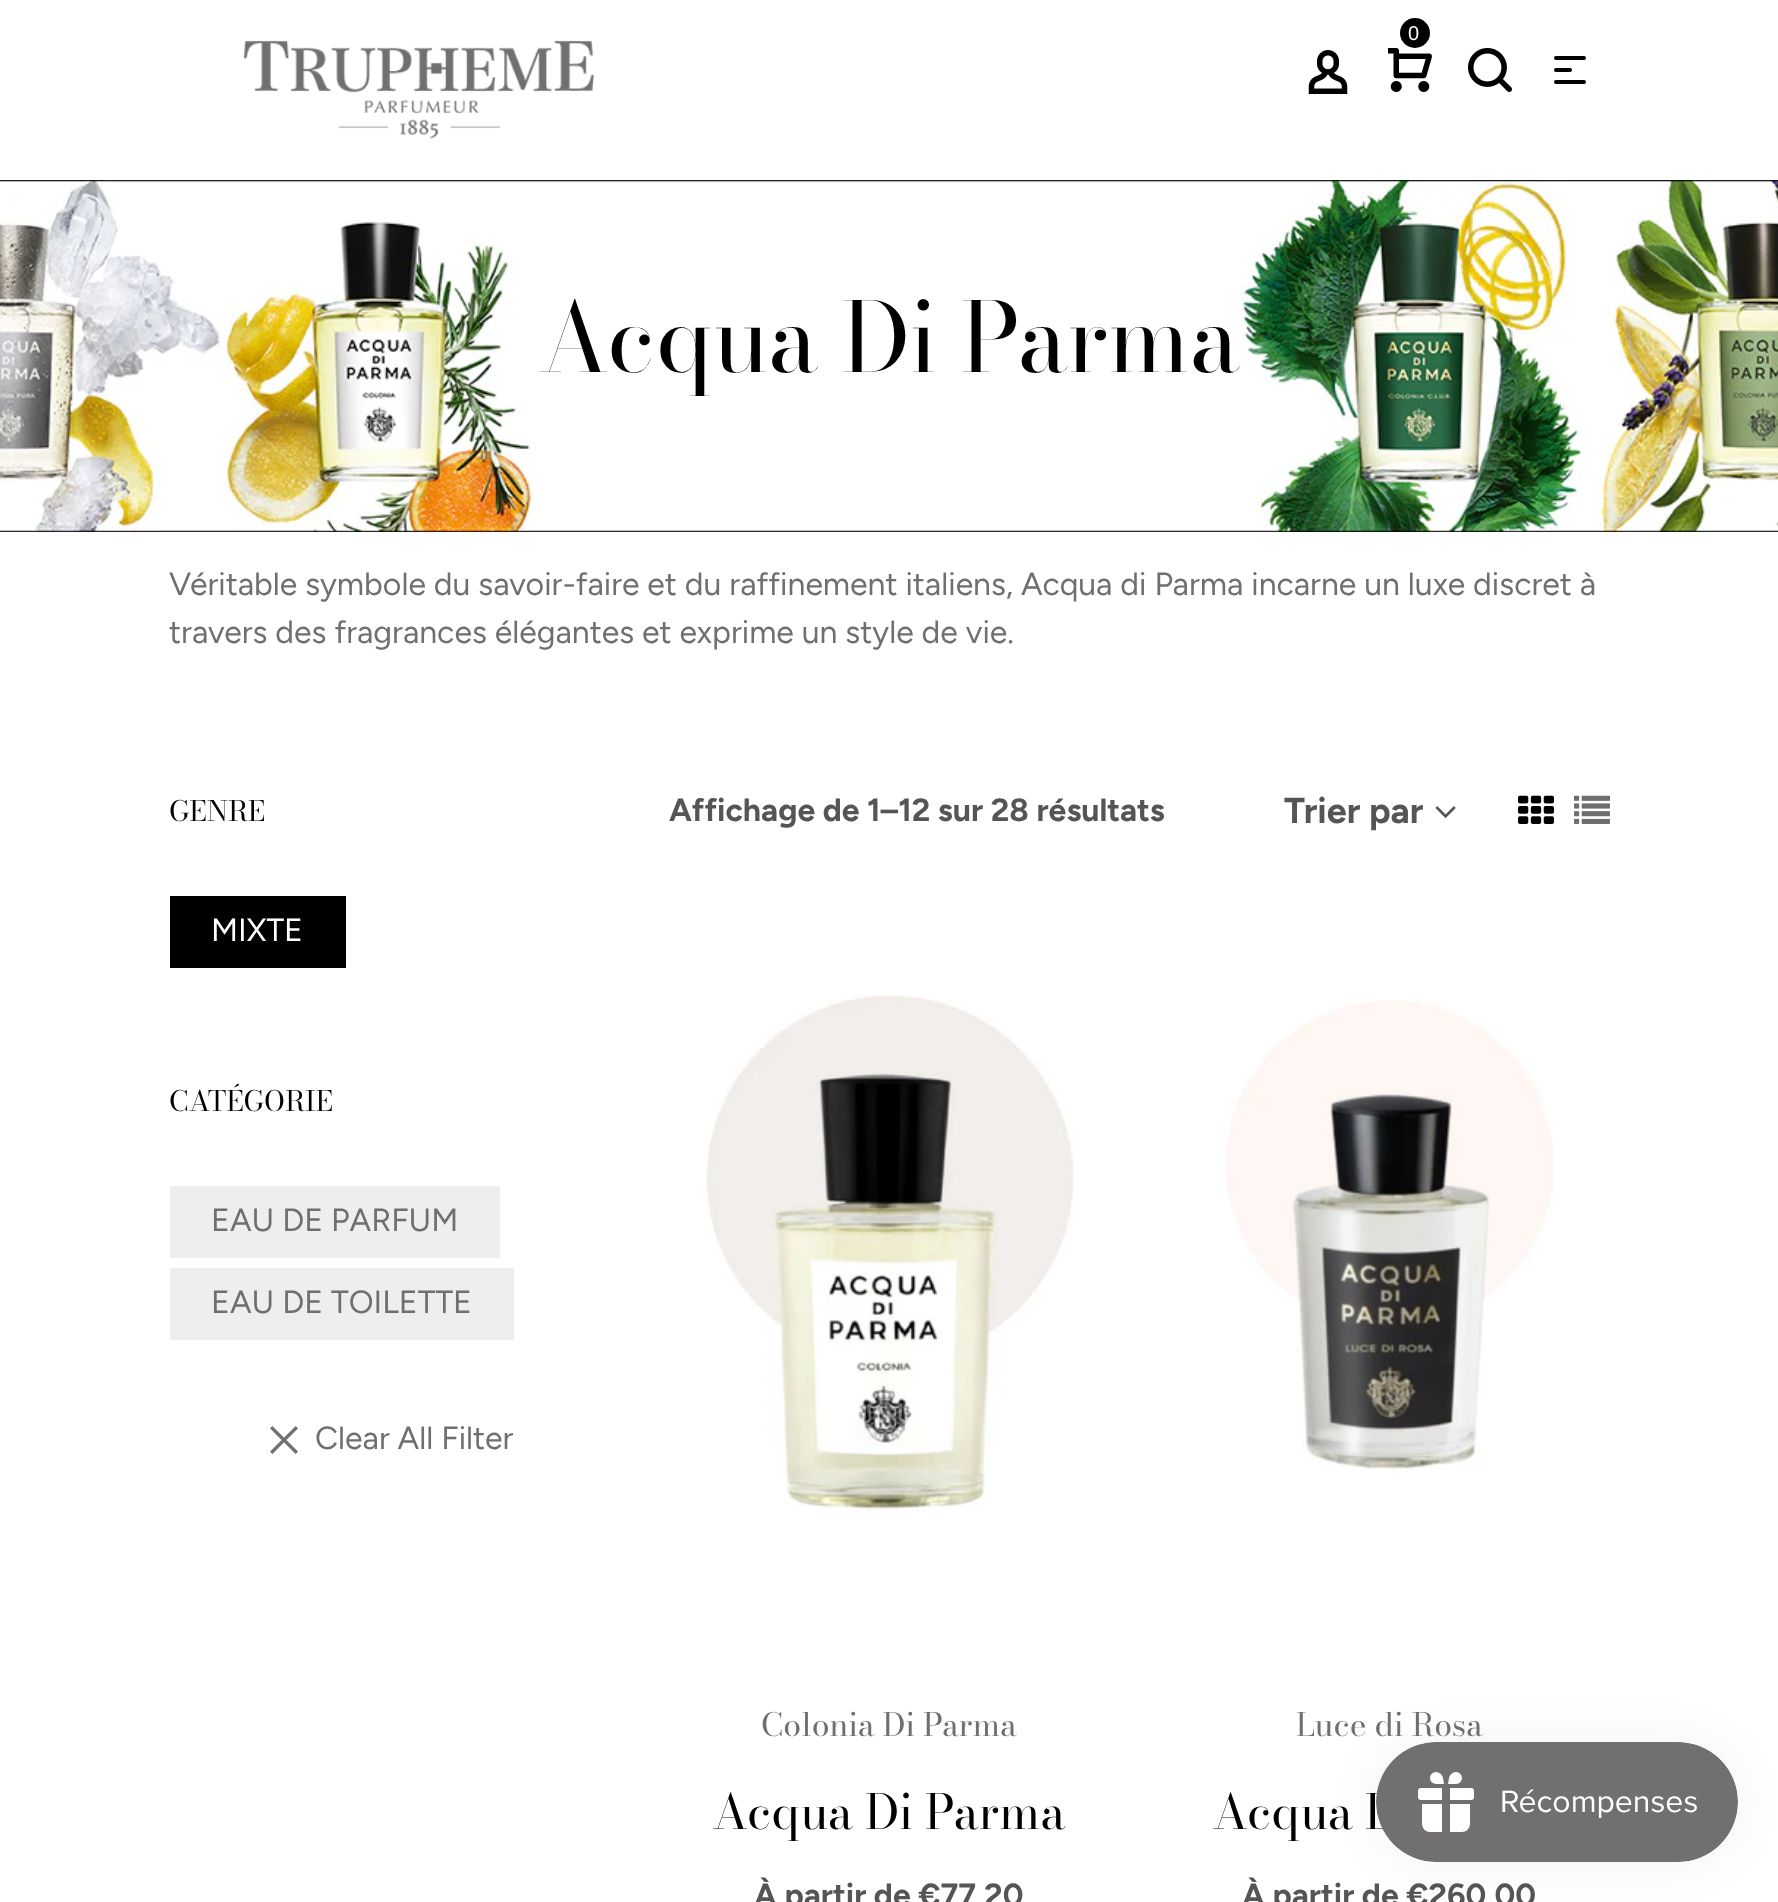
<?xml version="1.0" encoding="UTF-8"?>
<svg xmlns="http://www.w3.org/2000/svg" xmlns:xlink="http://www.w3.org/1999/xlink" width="1778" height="1902">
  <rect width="100%" height="100%" fill="#ffffff" />
  <circle cx="1415" cy="33" r="15" fill="#000000" />
  <image x="1388" y="48" width="44" height="44" xlink:href="image1.png" />
  <image x="1308" y="50" width="40" height="44" xlink:href="image2.png" />
  <image x="1468" y="48" width="44" height="44" xlink:href="image3.png" />
  <image x="1554" y="56" width="32" height="28" xlink:href="image4.png" />
  <image x="244" y="40" width="350" height="99" xlink:href="image5.png" />
  <image x="0" y="180" width="1778" height="352" xlink:href="image6.png" />
  <rect x="170" y="896" width="176" height="72" fill="#000000" />
  <rect x="170" y="1186" width="330" height="72" fill="#eeeeee" />
  <rect x="170" y="1268" width="344" height="72" fill="#eeeeee" />
  <image x="270" y="1426" width="28" height="28" xlink:href="image7.png" />
  <image x="1435" y="806" width="21" height="12" xlink:href="image8.png" />
  <image x="1518" y="795" width="36" height="29" xlink:href="image9.png" />
  <image x="1574" y="795" width="36" height="29" xlink:href="image10.png" />
  <image x="706" y="994" width="368" height="518" xlink:href="image11.png" />
  <image x="1225" y="1000" width="329" height="470" xlink:href="image12.png" />
  <rect x="1376" y="1742" width="362" height="120" rx="60" fill="#000000" fill-opacity="0.05" filter="blur(25px)" />
  <text x="1408" y="40" style="font-family: Liberation Sans; font-size: 20px; fill: #ffffff">0</text>
  <text x="538" y="372" style="font-family: Bodoni Moda; font-size: 96px; fill: #000000">Acqua Di Parma</text>
  <text x="169" y="595" style="font-family: Figtree; font-size: 32px; fill: #706f6f">Véritable symbole du savoir-faire et du raffinement italiens, Acqua di Parma incarne un luxe discret à</text>
  <text x="169" y="643" style="font-family: Figtree; font-size: 32px; fill: #706f6f">travers des fragrances élégantes et exprime un style de vie.</text>
  <text x="169" y="821" style="font-family: 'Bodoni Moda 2'; font-size: 28px; fill: #000000">GENRE</text>
  <text x="211" y="941" style="font-family: Figtree; font-size: 32px; fill: #ffffff">MIXTE</text>
  <text x="169" y="1111" style="font-family: 'Bodoni Moda 2'; font-size: 28px; fill: #000000">CATÉGORIE</text>
  <text x="211" y="1231" style="font-family: Figtree; font-size: 32px; fill: #706f6f">EAU DE PARFUM</text>
  <text x="211" y="1313" style="font-family: Figtree; font-size: 32px; fill: #706f6f">EAU DE TOILETTE</text>
  <text x="315" y="1449" style="font-family: Figtree; font-size: 32px; fill: #706f6f">Clear All Filter</text>
  <text x="669" y="821" style="font-family: Figtree; font-size: 32px; font-weight: bold; fill: #555555">Affichage de 1–12 sur 28 résultats</text>
  <text x="1284" y="823" style="font-family: Figtree; font-size: 36px; font-weight: bold; fill: #555555">Trier par</text>
  <text x="761" y="1736" style="font-family: 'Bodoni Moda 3'; font-size: 32px; fill: #706f6f">Colonia Di Parma</text>
  <text x="712" y="1829" style="font-family: 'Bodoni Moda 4'; font-size: 48px; fill: #000000">Acqua Di Parma</text>
  <text x="754" y="1906" style="font-family: Figtree; font-size: 32px; font-weight: bold; fill: #555555">À partir de €77,20</text>
  <text x="1296" y="1736" style="font-family: 'Bodoni Moda 3'; font-size: 32px; fill: #706f6f">Luce di Rosa</text>
  <text x="1212" y="1829" style="font-family: 'Bodoni Moda 4'; font-size: 48px; fill: #000000">Acqua D</text>
  <text x="1242" y="1906" style="font-family: Figtree; font-size: 32px; font-weight: bold; fill: #555555">À partir de €260,00</text>
  <image x="1376" y="1742" width="362" height="120" xlink:href="image13.png" />
</svg>
